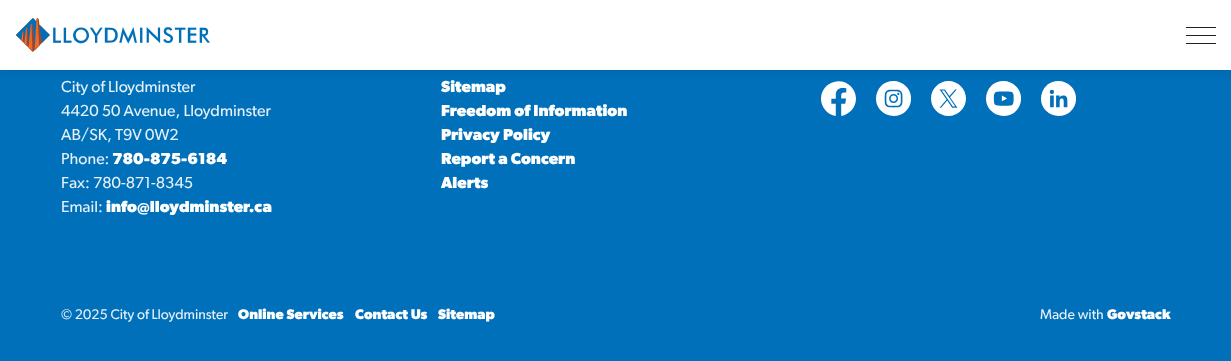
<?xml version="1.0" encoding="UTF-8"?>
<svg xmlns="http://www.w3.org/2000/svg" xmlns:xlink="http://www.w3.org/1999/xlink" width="1231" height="361">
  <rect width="100%" height="100%" fill="#0070ba" />
  <image x="821" y="81" width="35" height="35" xlink:href="image2.png" />
  <image x="876" y="81" width="35" height="35" xlink:href="image3.png" />
  <image x="931" y="81" width="35" height="35" xlink:href="image4.png" />
  <image x="986" y="81" width="35" height="35" xlink:href="image5.png" />
  <image x="1041" y="81" width="35" height="35" xlink:href="image6.png" />
  <rect y="1" width="1231" height="70" fill="#000000" fill-opacity="0.1" filter="blur(5px)" />
  <rect width="1231" height="70" fill="#ffffff" />
  <image x="16" y="18" width="194" height="34" xlink:href="image1.png" />
  <rect x="1186" y="35" width="30" height="1" fill="#222226" />
  <rect x="1186" y="27" width="30" height="1" fill="#222226" />
  <rect x="1186" y="43" width="30" height="1" fill="#222226" />
  <text x="61" y="92" style="font-family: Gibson; font-size: 16px; fill: #e6f1f8">City of Lloydminster</text>
  <text x="61" y="116" style="font-family: Gibson; font-size: 16px; fill: #e6f1f8">4420 50 Avenue, Lloydminster</text>
  <text x="61" y="140" style="font-family: Gibson; font-size: 16px; fill: #e6f1f8">AB/SK, T9V 0W2</text>
  <text x="61" y="164" style="font-family: Gibson; font-size: 16px; fill: #e6f1f8">Phone:</text>
  <text x="112" y="164" style="font-family: Gibson; font-size: 16px; font-weight: bold; fill: #ffffff">780-875-6184</text>
  <text x="61" y="188" style="font-family: Gibson; font-size: 16px; fill: #e6f1f8">Fax: 780-871-8345</text>
  <text x="61" y="212" style="font-family: Gibson; font-size: 16px; fill: #e6f1f8">Email:</text>
  <text x="106" y="212" style="font-family: Gibson; font-size: 16px; font-weight: bold; fill: #ffffff">info@lloydminster.ca</text>
  <text x="441" y="92" style="font-family: Gibson; font-size: 16px; font-weight: bold; fill: #ffffff">Sitemap</text>
  <text x="441" y="116" style="font-family: Gibson; font-size: 16px; font-weight: bold; fill: #ffffff">Freedom of Information</text>
  <text x="441" y="140" style="font-family: Gibson; font-size: 16px; font-weight: bold; fill: #ffffff">Privacy Policy</text>
  <text x="441" y="164" style="font-family: Gibson; font-size: 16px; font-weight: bold; fill: #ffffff">Report a Concern</text>
  <text x="441" y="188" style="font-family: Gibson; font-size: 16px; font-weight: bold; fill: #ffffff">Alerts</text>
  <text x="61" y="319" style="font-family: Gibson; font-size: 14px; fill: #e6f1f8">© 2025 City of Lloydminster</text>
  <text x="238" y="319" style="font-family: Gibson; font-size: 14px; font-weight: bold; fill: #ffffff">Online Services</text>
  <text x="355" y="319" style="font-family: Gibson; font-size: 14px; font-weight: bold; fill: #ffffff">Contact Us</text>
  <text x="438" y="319" style="font-family: Gibson; font-size: 14px; font-weight: bold; fill: #ffffff">Sitemap</text>
  <text x="1040" y="319" style="font-family: Gibson; font-size: 14px; fill: #e6f1f8">Made with</text>
  <text x="1107" y="319" style="font-family: Gibson; font-size: 14px; font-weight: bold; fill: #ffffff">Govstack</text>
</svg>
